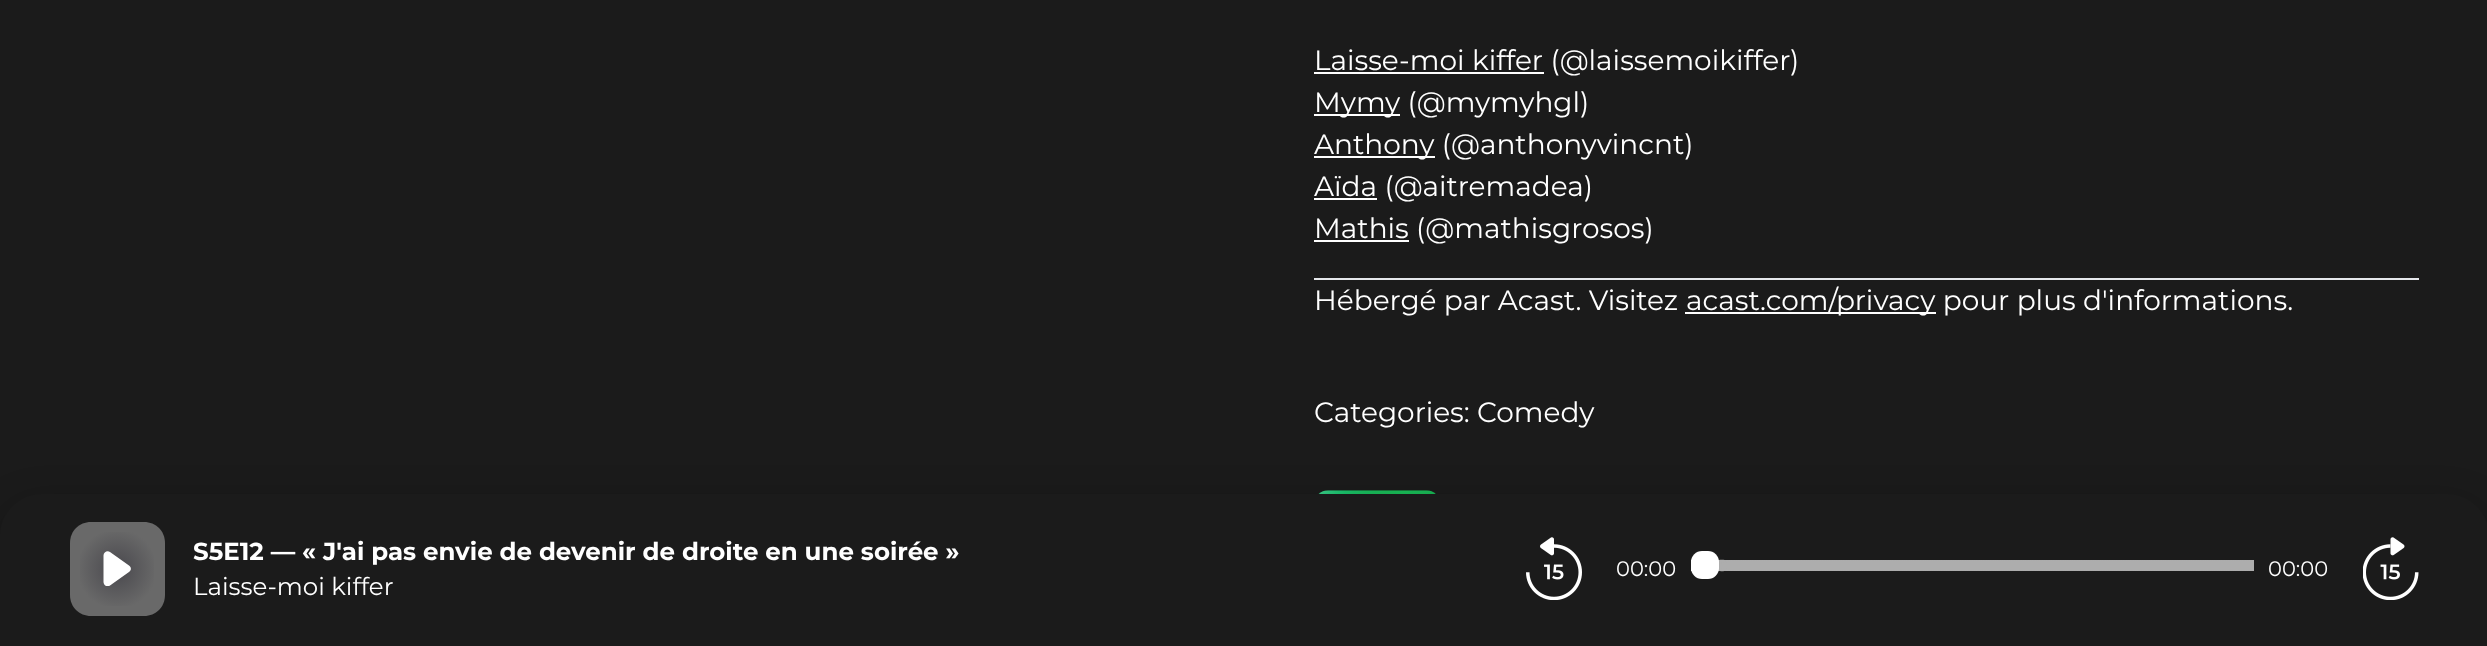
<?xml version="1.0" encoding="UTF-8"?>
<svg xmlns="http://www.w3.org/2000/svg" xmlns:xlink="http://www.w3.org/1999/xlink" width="2487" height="646">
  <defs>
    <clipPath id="clip1"><path d="M 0 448 h 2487 v 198 h -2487 z m 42 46 h 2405 c 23 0 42 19 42 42 v 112 h -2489 v -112 c 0 -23 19 -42 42 -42 z" clip-rule="evenodd" /></clipPath>
    <radialGradient id="g1" gradientUnits="userSpaceOnUse" cx="117" cy="569" r="40"><stop offset="0" stop-color="#49484d" /><stop offset="1" stop-color="#696969" /></radialGradient>
    <clipPath id="clip2"><rect x="100" y="551" width="35" height="35" /></clipPath>
  </defs>
  <rect width="100%" height="100%" fill="#1b1b1b" />
  <rect x="1314" y="72" width="230" height="2" fill="#ffffff" />
  <rect x="1314" y="114" width="86" height="2" fill="#ffffff" />
  <rect x="1314" y="156" width="121" height="2" fill="#ffffff" />
  <rect x="1314" y="198" width="63" height="2" fill="#ffffff" />
  <rect x="1314" y="240" width="95" height="2" fill="#ffffff" />
  <rect x="1314" y="278" width="1105" height="2" fill="#e5e7eb" />
  <rect x="1685" y="312" width="251" height="2" fill="#ffffff" />
  <image x="1318" y="490" width="118" height="4" xlink:href="image1.png" />
  <g clip-path="url(#clip1)">
    <rect y="502" width="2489" height="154" rx="42" fill="#000000" fill-opacity="0.24" filter="blur(17.5px)" />
  </g>
  <path d="M 91 522 h 53 c 12 0 21 9 21 21 v 52 c 0 12 -9 21 -21 21 h -53 c -12 0 -21 -9 -21 -21 v -52 c 0 -12 9 -21 21 -21 z" fill="#696969" />
  <rect x="80" y="532" width="74" height="74" fill="url(#g1)" />
  <g clip-path="url(#clip2)">
    <path d="M 103.5 582 v -26.5 c 0 -3.5 4 -5.5 6.5 -3.5 l 19 13.5 c 2.5 1.5 2.5 5 0 6.5 l -19 13.5 c -2.5 2 -6.5 0 -6.5 -3.5 z" fill="#ffffff" />
  </g>
  <image x="1526" y="537" width="56" height="63" xlink:href="image2.png" />
  <rect x="1691" y="560" width="28" height="11" fill="#ffffff" />
  <rect x="2252" y="560" width="2" height="11" fill="#adadad" />
  <rect x="2244" y="560" width="10" height="11" rx="2" fill="#adadad" />
  <rect x="2242" y="560" width="10" height="11" rx="2" fill="#adadad" />
  <rect x="2240" y="560" width="11" height="11" rx="2" fill="#adadad" />
  <rect x="2238" y="560" width="11" height="11" rx="2" fill="#adadad" />
  <rect x="2237" y="560" width="10" height="11" rx="2" fill="#adadad" />
  <rect x="2235" y="560" width="10" height="11" rx="2" fill="#adadad" />
  <rect x="2233" y="560" width="11" height="11" rx="2" fill="#adadad" />
  <rect x="2231" y="560" width="11" height="11" rx="2" fill="#adadad" />
  <rect x="2230" y="560" width="10" height="11" rx="2" fill="#adadad" />
  <rect x="2228" y="560" width="10" height="11" rx="2" fill="#adadad" />
  <rect x="2226" y="560" width="11" height="11" rx="2" fill="#adadad" />
  <rect x="2224" y="560" width="11" height="11" rx="2" fill="#adadad" />
  <rect x="2223" y="560" width="10" height="11" rx="2" fill="#adadad" />
  <rect x="2221" y="560" width="10" height="11" rx="2" fill="#adadad" />
  <rect x="2219" y="560" width="11" height="11" rx="2" fill="#adadad" />
  <rect x="2217" y="560" width="11" height="11" rx="2" fill="#adadad" />
  <rect x="2216" y="560" width="10" height="11" rx="2" fill="#adadad" />
  <rect x="2214" y="560" width="10" height="11" rx="2" fill="#adadad" />
  <rect x="2212" y="560" width="11" height="11" rx="2" fill="#adadad" />
  <rect x="2210" y="560" width="11" height="11" rx="2" fill="#adadad" />
  <rect x="2209" y="560" width="10" height="11" rx="2" fill="#adadad" />
  <rect x="2207" y="560" width="10" height="11" rx="2" fill="#adadad" />
  <rect x="2205" y="560" width="11" height="11" rx="2" fill="#adadad" />
  <rect x="2203" y="560" width="11" height="11" rx="2" fill="#adadad" />
  <rect x="2202" y="560" width="10" height="11" rx="2" fill="#adadad" />
  <rect x="2200" y="560" width="10" height="11" rx="2" fill="#adadad" />
  <rect x="2198" y="560" width="11" height="11" rx="2" fill="#adadad" />
  <rect x="2196" y="560" width="11" height="11" rx="2" fill="#adadad" />
  <rect x="2195" y="560" width="10" height="11" rx="2" fill="#adadad" />
  <rect x="2193" y="560" width="10" height="11" rx="2" fill="#adadad" />
  <rect x="2191" y="560" width="11" height="11" rx="2" fill="#adadad" />
  <rect x="2189" y="560" width="11" height="11" rx="2" fill="#adadad" />
  <rect x="2188" y="560" width="10" height="11" rx="2" fill="#adadad" />
  <rect x="2186" y="560" width="10" height="11" rx="2" fill="#adadad" />
  <rect x="2184" y="560" width="11" height="11" rx="2" fill="#adadad" />
  <rect x="2182" y="560" width="11" height="11" rx="2" fill="#adadad" />
  <rect x="2181" y="560" width="10" height="11" rx="2" fill="#adadad" />
  <rect x="2179" y="560" width="10" height="11" rx="2" fill="#adadad" />
  <rect x="2177" y="560" width="11" height="11" rx="2" fill="#adadad" />
  <rect x="2175" y="560" width="11" height="11" rx="2" fill="#adadad" />
  <rect x="2174" y="560" width="10" height="11" rx="2" fill="#adadad" />
  <rect x="2172" y="560" width="10" height="11" rx="2" fill="#adadad" />
  <rect x="2170" y="560" width="11" height="11" rx="2" fill="#adadad" />
  <rect x="2168" y="560" width="11" height="11" rx="2" fill="#adadad" />
  <rect x="2167" y="560" width="10" height="11" rx="2" fill="#adadad" />
  <rect x="2165" y="560" width="10" height="11" rx="2" fill="#adadad" />
  <rect x="2163" y="560" width="11" height="11" rx="2" fill="#adadad" />
  <rect x="2161" y="560" width="11" height="11" rx="2" fill="#adadad" />
  <rect x="2160" y="560" width="10" height="11" rx="2" fill="#adadad" />
  <rect x="2158" y="560" width="10" height="11" rx="2" fill="#adadad" />
  <rect x="2156" y="560" width="11" height="11" rx="2" fill="#adadad" />
  <rect x="2154" y="560" width="11" height="11" rx="2" fill="#adadad" />
  <rect x="2153" y="560" width="10" height="11" rx="2" fill="#adadad" />
  <rect x="2151" y="560" width="10" height="11" rx="2" fill="#adadad" />
  <rect x="2149" y="560" width="11" height="11" rx="2" fill="#adadad" />
  <rect x="2147" y="560" width="11" height="11" rx="2" fill="#adadad" />
  <rect x="2146" y="560" width="10" height="11" rx="2" fill="#adadad" />
  <rect x="2144" y="560" width="10" height="11" rx="2" fill="#adadad" />
  <rect x="2142" y="560" width="11" height="11" rx="2" fill="#adadad" />
  <rect x="2140" y="560" width="11" height="11" rx="2" fill="#adadad" />
  <rect x="2139" y="560" width="10" height="11" rx="2" fill="#adadad" />
  <rect x="2137" y="560" width="10" height="11" rx="2" fill="#adadad" />
  <rect x="2135" y="560" width="11" height="11" rx="2" fill="#adadad" />
  <rect x="2133" y="560" width="11" height="11" rx="2" fill="#adadad" />
  <rect x="2132" y="560" width="10" height="11" rx="2" fill="#adadad" />
  <rect x="2130" y="560" width="10" height="11" rx="2" fill="#adadad" />
  <rect x="2128" y="560" width="11" height="11" rx="2" fill="#adadad" />
  <rect x="2126" y="560" width="11" height="11" rx="2" fill="#adadad" />
  <rect x="2125" y="560" width="10" height="11" rx="2" fill="#adadad" />
  <rect x="2123" y="560" width="10" height="11" rx="2" fill="#adadad" />
  <rect x="2121" y="560" width="11" height="11" rx="2" fill="#adadad" />
  <rect x="2119" y="560" width="11" height="11" rx="2" fill="#adadad" />
  <rect x="2118" y="560" width="10" height="11" rx="2" fill="#adadad" />
  <rect x="2116" y="560" width="10" height="11" rx="2" fill="#adadad" />
  <rect x="2114" y="560" width="11" height="11" rx="2" fill="#adadad" />
  <rect x="2112" y="560" width="11" height="11" rx="2" fill="#adadad" />
  <rect x="2111" y="560" width="10" height="11" rx="2" fill="#adadad" />
  <rect x="2109" y="560" width="10" height="11" rx="2" fill="#adadad" />
  <rect x="2107" y="560" width="11" height="11" rx="2" fill="#adadad" />
  <rect x="2105" y="560" width="11" height="11" rx="2" fill="#adadad" />
  <rect x="2104" y="560" width="10" height="11" rx="2" fill="#adadad" />
  <rect x="2102" y="560" width="10" height="11" rx="2" fill="#adadad" />
  <rect x="2100" y="560" width="11" height="11" rx="2" fill="#adadad" />
  <rect x="2098" y="560" width="11" height="11" rx="2" fill="#adadad" />
  <rect x="2097" y="560" width="10" height="11" rx="2" fill="#adadad" />
  <rect x="2095" y="560" width="10" height="11" rx="2" fill="#adadad" />
  <rect x="2093" y="560" width="11" height="11" rx="2" fill="#adadad" />
  <rect x="2091" y="560" width="11" height="11" rx="2" fill="#adadad" />
  <rect x="2090" y="560" width="10" height="11" rx="2" fill="#adadad" />
  <rect x="2088" y="560" width="10" height="11" rx="2" fill="#adadad" />
  <rect x="2086" y="560" width="11" height="11" rx="2" fill="#adadad" />
  <rect x="2084" y="560" width="11" height="11" rx="2" fill="#adadad" />
  <rect x="2083" y="560" width="10" height="11" rx="2" fill="#adadad" />
  <rect x="2081" y="560" width="10" height="11" rx="2" fill="#adadad" />
  <rect x="2079" y="560" width="11" height="11" rx="2" fill="#adadad" />
  <rect x="2077" y="560" width="11" height="11" rx="2" fill="#adadad" />
  <rect x="2076" y="560" width="10" height="11" rx="2" fill="#adadad" />
  <rect x="2074" y="560" width="10" height="11" rx="2" fill="#adadad" />
  <rect x="2072" y="560" width="11" height="11" rx="2" fill="#adadad" />
  <rect x="2070" y="560" width="11" height="11" rx="2" fill="#adadad" />
  <rect x="2069" y="560" width="10" height="11" rx="2" fill="#adadad" />
  <rect x="2067" y="560" width="10" height="11" rx="2" fill="#adadad" />
  <rect x="2065" y="560" width="11" height="11" rx="2" fill="#adadad" />
  <rect x="2063" y="560" width="11" height="11" rx="2" fill="#adadad" />
  <rect x="2062" y="560" width="10" height="11" rx="2" fill="#adadad" />
  <rect x="2060" y="560" width="10" height="11" rx="2" fill="#adadad" />
  <rect x="2058" y="560" width="11" height="11" rx="2" fill="#adadad" />
  <rect x="2056" y="560" width="11" height="11" rx="2" fill="#adadad" />
  <rect x="2055" y="560" width="10" height="11" rx="2" fill="#adadad" />
  <rect x="2053" y="560" width="10" height="11" rx="2" fill="#adadad" />
  <rect x="2051" y="560" width="11" height="11" rx="2" fill="#adadad" />
  <rect x="2049" y="560" width="11" height="11" rx="2" fill="#adadad" />
  <rect x="2048" y="560" width="10" height="11" rx="2" fill="#adadad" />
  <rect x="2046" y="560" width="10" height="11" rx="2" fill="#adadad" />
  <rect x="2044" y="560" width="11" height="11" rx="2" fill="#adadad" />
  <rect x="2042" y="560" width="11" height="11" rx="2" fill="#adadad" />
  <rect x="2041" y="560" width="10" height="11" rx="2" fill="#adadad" />
  <rect x="2039" y="560" width="10" height="11" rx="2" fill="#adadad" />
  <rect x="2037" y="560" width="11" height="11" rx="2" fill="#adadad" />
  <rect x="2035" y="560" width="11" height="11" rx="2" fill="#adadad" />
  <rect x="2034" y="560" width="10" height="11" rx="2" fill="#adadad" />
  <rect x="2032" y="560" width="10" height="11" rx="2" fill="#adadad" />
  <rect x="2030" y="560" width="11" height="11" rx="2" fill="#adadad" />
  <rect x="2028" y="560" width="11" height="11" rx="2" fill="#adadad" />
  <rect x="2027" y="560" width="10" height="11" rx="2" fill="#adadad" />
  <rect x="2025" y="560" width="10" height="11" rx="2" fill="#adadad" />
  <rect x="2023" y="560" width="11" height="11" rx="2" fill="#adadad" />
  <rect x="2021" y="560" width="11" height="11" rx="2" fill="#adadad" />
  <rect x="2020" y="560" width="10" height="11" rx="2" fill="#adadad" />
  <rect x="2018" y="560" width="10" height="11" rx="2" fill="#adadad" />
  <rect x="2016" y="560" width="11" height="11" rx="2" fill="#adadad" />
  <rect x="2014" y="560" width="11" height="11" rx="2" fill="#adadad" />
  <rect x="2013" y="560" width="10" height="11" rx="2" fill="#adadad" />
  <rect x="2011" y="560" width="10" height="11" rx="2" fill="#adadad" />
  <rect x="2009" y="560" width="11" height="11" rx="2" fill="#adadad" />
  <rect x="2007" y="560" width="11" height="11" rx="2" fill="#adadad" />
  <rect x="2006" y="560" width="10" height="11" rx="2" fill="#adadad" />
  <rect x="2004" y="560" width="10" height="11" rx="2" fill="#adadad" />
  <rect x="2002" y="560" width="11" height="11" rx="2" fill="#adadad" />
  <rect x="2000" y="560" width="11" height="11" rx="2" fill="#adadad" />
  <rect x="1999" y="560" width="10" height="11" rx="2" fill="#adadad" />
  <rect x="1997" y="560" width="10" height="11" rx="2" fill="#adadad" />
  <rect x="1995" y="560" width="11" height="11" rx="2" fill="#adadad" />
  <rect x="1993" y="560" width="11" height="11" rx="2" fill="#adadad" />
  <rect x="1992" y="560" width="10" height="11" rx="2" fill="#adadad" />
  <rect x="1990" y="560" width="10" height="11" rx="2" fill="#adadad" />
  <rect x="1988" y="560" width="11" height="11" rx="2" fill="#adadad" />
  <rect x="1986" y="560" width="11" height="11" rx="2" fill="#adadad" />
  <rect x="1985" y="560" width="10" height="11" rx="2" fill="#adadad" />
  <rect x="1983" y="560" width="10" height="11" rx="2" fill="#adadad" />
  <rect x="1981" y="560" width="11" height="11" rx="2" fill="#adadad" />
  <rect x="1979" y="560" width="11" height="11" rx="2" fill="#adadad" />
  <rect x="1978" y="560" width="10" height="11" rx="2" fill="#adadad" />
  <rect x="1976" y="560" width="10" height="11" rx="2" fill="#adadad" />
  <rect x="1974" y="560" width="11" height="11" rx="2" fill="#adadad" />
  <rect x="1972" y="560" width="11" height="11" rx="2" fill="#adadad" />
  <rect x="1971" y="560" width="10" height="11" rx="2" fill="#adadad" />
  <rect x="1969" y="560" width="10" height="11" rx="2" fill="#adadad" />
  <rect x="1967" y="560" width="11" height="11" rx="2" fill="#adadad" />
  <rect x="1965" y="560" width="11" height="11" rx="2" fill="#adadad" />
  <rect x="1964" y="560" width="10" height="11" rx="2" fill="#adadad" />
  <rect x="1962" y="560" width="10" height="11" rx="2" fill="#adadad" />
  <rect x="1960" y="560" width="11" height="11" rx="2" fill="#adadad" />
  <rect x="1958" y="560" width="11" height="11" rx="2" fill="#adadad" />
  <rect x="1957" y="560" width="10" height="11" rx="2" fill="#adadad" />
  <rect x="1955" y="560" width="10" height="11" rx="2" fill="#adadad" />
  <rect x="1953" y="560" width="11" height="11" rx="2" fill="#adadad" />
  <rect x="1951" y="560" width="11" height="11" rx="2" fill="#adadad" />
  <rect x="1950" y="560" width="10" height="11" rx="2" fill="#adadad" />
  <rect x="1948" y="560" width="10" height="11" rx="2" fill="#adadad" />
  <rect x="1946" y="560" width="11" height="11" rx="2" fill="#adadad" />
  <rect x="1944" y="560" width="11" height="11" rx="2" fill="#adadad" />
  <rect x="1943" y="560" width="10" height="11" rx="2" fill="#adadad" />
  <rect x="1941" y="560" width="10" height="11" rx="2" fill="#adadad" />
  <rect x="1939" y="560" width="11" height="11" rx="2" fill="#adadad" />
  <rect x="1937" y="560" width="11" height="11" rx="2" fill="#adadad" />
  <rect x="1936" y="560" width="10" height="11" rx="2" fill="#adadad" />
  <rect x="1934" y="560" width="10" height="11" rx="2" fill="#adadad" />
  <rect x="1932" y="560" width="11" height="11" rx="2" fill="#adadad" />
  <rect x="1930" y="560" width="11" height="11" rx="2" fill="#adadad" />
  <rect x="1929" y="560" width="10" height="11" rx="2" fill="#adadad" />
  <rect x="1927" y="560" width="10" height="11" rx="2" fill="#adadad" />
  <rect x="1925" y="560" width="11" height="11" rx="2" fill="#adadad" />
  <rect x="1923" y="560" width="11" height="11" rx="2" fill="#adadad" />
  <rect x="1922" y="560" width="10" height="11" rx="2" fill="#adadad" />
  <rect x="1920" y="560" width="10" height="11" rx="2" fill="#adadad" />
  <rect x="1918" y="560" width="11" height="11" rx="2" fill="#adadad" />
  <rect x="1916" y="560" width="11" height="11" rx="2" fill="#adadad" />
  <rect x="1915" y="560" width="10" height="11" rx="2" fill="#adadad" />
  <rect x="1913" y="560" width="10" height="11" rx="2" fill="#adadad" />
  <rect x="1911" y="560" width="11" height="11" rx="2" fill="#adadad" />
  <rect x="1909" y="560" width="11" height="11" rx="2" fill="#adadad" />
  <rect x="1908" y="560" width="10" height="11" rx="2" fill="#adadad" />
  <rect x="1906" y="560" width="10" height="11" rx="2" fill="#adadad" />
  <rect x="1904" y="560" width="11" height="11" rx="2" fill="#adadad" />
  <rect x="1902" y="560" width="11" height="11" rx="2" fill="#adadad" />
  <rect x="1901" y="560" width="10" height="11" rx="2" fill="#adadad" />
  <rect x="1899" y="560" width="10" height="11" rx="2" fill="#adadad" />
  <rect x="1897" y="560" width="11" height="11" rx="2" fill="#adadad" />
  <rect x="1895" y="560" width="11" height="11" rx="2" fill="#adadad" />
  <rect x="1894" y="560" width="10" height="11" rx="2" fill="#adadad" />
  <rect x="1892" y="560" width="10" height="11" rx="2" fill="#adadad" />
  <rect x="1890" y="560" width="11" height="11" rx="2" fill="#adadad" />
  <rect x="1888" y="560" width="11" height="11" rx="2" fill="#adadad" />
  <rect x="1887" y="560" width="10" height="11" rx="2" fill="#adadad" />
  <rect x="1885" y="560" width="10" height="11" rx="2" fill="#adadad" />
  <rect x="1883" y="560" width="11" height="11" rx="2" fill="#adadad" />
  <rect x="1881" y="560" width="11" height="11" rx="2" fill="#adadad" />
  <rect x="1880" y="560" width="10" height="11" rx="2" fill="#adadad" />
  <rect x="1878" y="560" width="10" height="11" rx="2" fill="#adadad" />
  <rect x="1876" y="560" width="11" height="11" rx="2" fill="#adadad" />
  <rect x="1874" y="560" width="11" height="11" rx="2" fill="#adadad" />
  <rect x="1873" y="560" width="10" height="11" rx="2" fill="#adadad" />
  <rect x="1871" y="560" width="10" height="11" rx="2" fill="#adadad" />
  <rect x="1869" y="560" width="11" height="11" rx="2" fill="#adadad" />
  <rect x="1867" y="560" width="11" height="11" rx="2" fill="#adadad" />
  <rect x="1866" y="560" width="10" height="11" rx="2" fill="#adadad" />
  <rect x="1864" y="560" width="10" height="11" rx="2" fill="#adadad" />
  <rect x="1862" y="560" width="11" height="11" rx="2" fill="#adadad" />
  <rect x="1860" y="560" width="11" height="11" rx="2" fill="#adadad" />
  <rect x="1859" y="560" width="10" height="11" rx="2" fill="#adadad" />
  <rect x="1857" y="560" width="10" height="11" rx="2" fill="#adadad" />
  <rect x="1855" y="560" width="11" height="11" rx="2" fill="#adadad" />
  <rect x="1853" y="560" width="11" height="11" rx="2" fill="#adadad" />
  <rect x="1852" y="560" width="10" height="11" rx="2" fill="#adadad" />
  <rect x="1850" y="560" width="10" height="11" rx="2" fill="#adadad" />
  <rect x="1848" y="560" width="11" height="11" rx="2" fill="#adadad" />
  <rect x="1846" y="560" width="11" height="11" rx="2" fill="#adadad" />
  <rect x="1845" y="560" width="10" height="11" rx="2" fill="#adadad" />
  <rect x="1843" y="560" width="10" height="11" rx="2" fill="#adadad" />
  <rect x="1841" y="560" width="11" height="11" rx="2" fill="#adadad" />
  <rect x="1839" y="560" width="11" height="11" rx="2" fill="#adadad" />
  <rect x="1838" y="560" width="10" height="11" rx="2" fill="#adadad" />
  <rect x="1836" y="560" width="10" height="11" rx="2" fill="#adadad" />
  <rect x="1834" y="560" width="11" height="11" rx="2" fill="#adadad" />
  <rect x="1832" y="560" width="11" height="11" rx="2" fill="#adadad" />
  <rect x="1831" y="560" width="10" height="11" rx="2" fill="#adadad" />
  <rect x="1829" y="560" width="10" height="11" rx="2" fill="#adadad" />
  <rect x="1827" y="560" width="11" height="11" rx="2" fill="#adadad" />
  <rect x="1825" y="560" width="11" height="11" rx="2" fill="#adadad" />
  <rect x="1824" y="560" width="10" height="11" rx="2" fill="#adadad" />
  <rect x="1822" y="560" width="10" height="11" rx="2" fill="#adadad" />
  <rect x="1820" y="560" width="11" height="11" rx="2" fill="#adadad" />
  <rect x="1818" y="560" width="11" height="11" rx="2" fill="#adadad" />
  <rect x="1817" y="560" width="10" height="11" rx="2" fill="#adadad" />
  <rect x="1815" y="560" width="10" height="11" rx="2" fill="#adadad" />
  <rect x="1813" y="560" width="11" height="11" rx="2" fill="#adadad" />
  <rect x="1811" y="560" width="11" height="11" rx="2" fill="#adadad" />
  <rect x="1810" y="560" width="10" height="11" rx="2" fill="#adadad" />
  <rect x="1808" y="560" width="10" height="11" rx="2" fill="#adadad" />
  <rect x="1806" y="560" width="11" height="11" rx="2" fill="#adadad" />
  <rect x="1804" y="560" width="11" height="11" rx="2" fill="#adadad" />
  <rect x="1803" y="560" width="10" height="11" rx="2" fill="#adadad" />
  <rect x="1801" y="560" width="10" height="11" rx="2" fill="#adadad" />
  <rect x="1799" y="560" width="11" height="11" rx="2" fill="#adadad" />
  <rect x="1797" y="560" width="11" height="11" rx="2" fill="#adadad" />
  <rect x="1796" y="560" width="10" height="11" rx="2" fill="#adadad" />
  <rect x="1794" y="560" width="10" height="11" rx="2" fill="#adadad" />
  <rect x="1792" y="560" width="11" height="11" rx="2" fill="#adadad" />
  <rect x="1790" y="560" width="11" height="11" rx="2" fill="#adadad" />
  <rect x="1789" y="560" width="10" height="11" rx="2" fill="#adadad" />
  <rect x="1787" y="560" width="10" height="11" rx="2" fill="#adadad" />
  <rect x="1785" y="560" width="11" height="11" rx="2" fill="#adadad" />
  <rect x="1783" y="560" width="11" height="11" rx="2" fill="#adadad" />
  <rect x="1782" y="560" width="10" height="11" rx="2" fill="#adadad" />
  <rect x="1780" y="560" width="10" height="11" rx="2" fill="#adadad" />
  <rect x="1778" y="560" width="11" height="11" rx="2" fill="#adadad" />
  <rect x="1776" y="560" width="11" height="11" rx="2" fill="#adadad" />
  <rect x="1775" y="560" width="10" height="11" rx="2" fill="#adadad" />
  <rect x="1773" y="560" width="10" height="11" rx="2" fill="#adadad" />
  <rect x="1771" y="560" width="11" height="11" rx="2" fill="#adadad" />
  <rect x="1769" y="560" width="11" height="11" rx="2" fill="#adadad" />
  <rect x="1768" y="560" width="10" height="11" rx="2" fill="#adadad" />
  <rect x="1766" y="560" width="10" height="11" rx="2" fill="#adadad" />
  <rect x="1764" y="560" width="11" height="11" rx="2" fill="#adadad" />
  <rect x="1762" y="560" width="11" height="11" rx="2" fill="#adadad" />
  <rect x="1761" y="560" width="10" height="11" rx="2" fill="#adadad" />
  <rect x="1759" y="560" width="10" height="11" rx="2" fill="#adadad" />
  <rect x="1757" y="560" width="11" height="11" rx="2" fill="#adadad" />
  <rect x="1755" y="560" width="11" height="11" rx="2" fill="#adadad" />
  <rect x="1754" y="560" width="10" height="11" rx="2" fill="#adadad" />
  <rect x="1752" y="560" width="10" height="11" rx="2" fill="#adadad" />
  <rect x="1750" y="560" width="11" height="11" rx="2" fill="#adadad" />
  <rect x="1748" y="560" width="11" height="11" rx="2" fill="#adadad" />
  <rect x="1747" y="560" width="10" height="11" rx="2" fill="#adadad" />
  <rect x="1745" y="560" width="10" height="11" rx="2" fill="#adadad" />
  <rect x="1743" y="560" width="11" height="11" rx="2" fill="#adadad" />
  <rect x="1741" y="560" width="11" height="11" rx="2" fill="#adadad" />
  <rect x="1740" y="560" width="10" height="11" rx="2" fill="#adadad" />
  <rect x="1738" y="560" width="10" height="11" rx="2" fill="#adadad" />
  <rect x="1736" y="560" width="11" height="11" rx="2" fill="#adadad" />
  <rect x="1734" y="560" width="11" height="11" rx="2" fill="#adadad" />
  <rect x="1733" y="560" width="10" height="11" rx="2" fill="#adadad" />
  <rect x="1731" y="560" width="10" height="11" rx="2" fill="#adadad" />
  <rect x="1729" y="560" width="11" height="11" rx="2" fill="#adadad" />
  <rect x="1727" y="560" width="11" height="11" rx="2" fill="#adadad" />
  <rect x="1726" y="560" width="10" height="11" rx="2" fill="#adadad" />
  <rect x="1724" y="560" width="10" height="11" rx="2" fill="#adadad" />
  <rect x="1722" y="560" width="11" height="11" rx="2" fill="#adadad" />
  <rect x="1720" y="560" width="11" height="11" rx="2" fill="#adadad" />
  <rect x="1719" y="560" width="10" height="11" rx="2" fill="#adadad" />
  <path d="M 1719 560 h -0.5 v 11 h 3.5 c 5.5 0 5 0 5 -5.5 c 0 -1.5 0.5 -5.5 -2 -5.5 z" fill="#adadad" />
  <path d="M 1718.5 571 c 1.5 0 7 1 7.5 -1.5 v -8 c -0.5 -2.5 -6 -1.5 -7.5 -1.5 z" fill="#adadad" />
  <path d="M 1718.5 571 c 5.5 0 5.5 0.5 5.5 -5.5 c 0 -6 0 -5.5 -5.5 -5.5 z" fill="#adadad" />
  <path d="M 1718.5 571 c 4 0 3.5 -1.5 3.5 -5.5 c 0 -4 0.5 -5.5 -3.5 -5.5 z" fill="#adadad" />
  <rect x="1691" y="551" width="28" height="28" rx="11" fill="#ffffff" />
  <image x="2363" y="537" width="56" height="63" xlink:href="image3.png" />
  <text x="1314" y="70" style="font-family: Montserrat; font-size: 28px; fill: #ffffff">Laisse-moi kiffer (@laissemoikiffer)</text>
  <text x="1314" y="112" style="font-family: Montserrat; font-size: 28px; fill: #ffffff">Mymy (@mymyhgl)</text>
  <text x="1314" y="154" style="font-family: Montserrat; font-size: 28px; fill: #ffffff">Anthony (@anthonyvincnt)</text>
  <text x="1314" y="196" style="font-family: Montserrat; font-size: 28px; fill: #ffffff">Aïda (@aitremadea)</text>
  <text x="1314" y="238" style="font-family: Montserrat; font-size: 28px; fill: #ffffff">Mathis (@mathisgrosos)</text>
  <text x="1314" y="310" style="font-family: Montserrat; font-size: 28px; fill: #ffffff">Hébergé par Acast. Visitez</text>
  <text x="1686" y="310" style="font-family: Montserrat; font-size: 28px; fill: #ffffff">acast.com/privacy pour plus d'informations.</text>
  <text x="1314" y="422" style="font-family: Montserrat; font-size: 28px; fill: #ffffff">Categories: Comedy</text>
  <text x="193" y="560" style="font-family: Montserrat; font-size: 24.5px; font-weight: bold; fill: #ffffff">S5E12 — « J'ai pas envie de devenir de droite en une soirée »</text>
  <text x="193" y="595" style="font-family: Montserrat; font-size: 24.5px; fill: #ffffff">Laisse-moi kiffer</text>
  <text x="1616" y="576" style="font-family: Montserrat; font-size: 21px; fill: #ffffff">00:00</text>
  <text x="2268" y="576" style="font-family: Montserrat; font-size: 21px; fill: #ffffff">00:00</text>
</svg>
